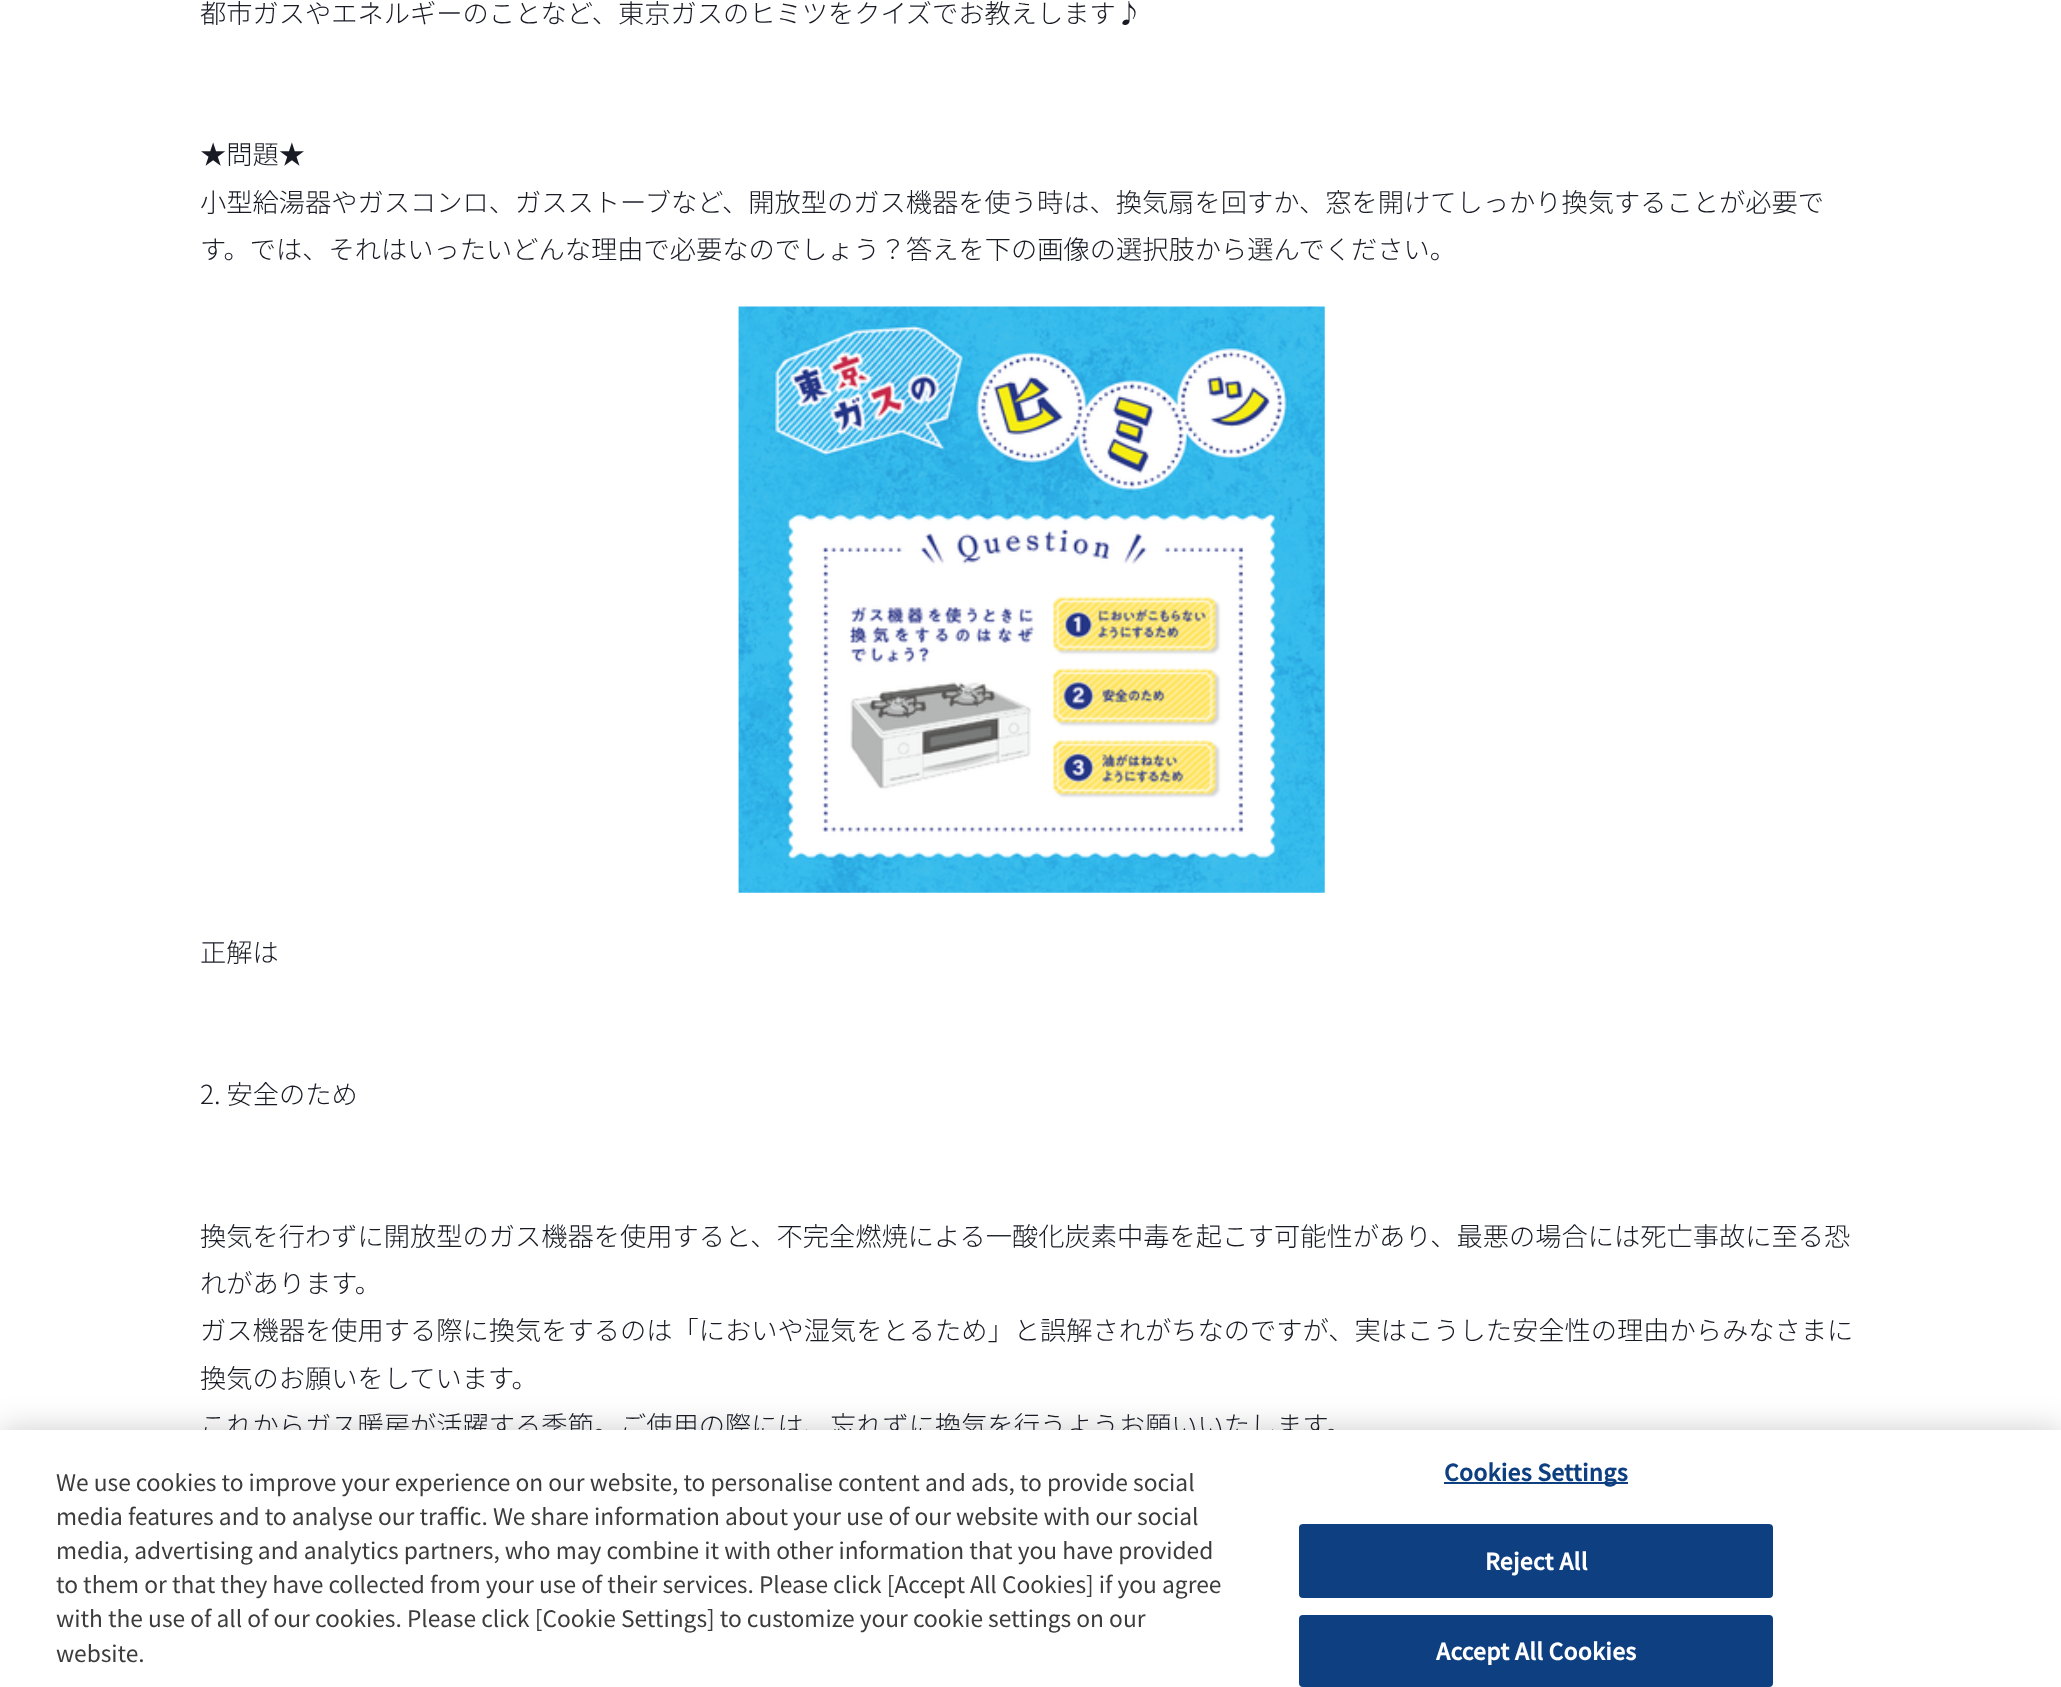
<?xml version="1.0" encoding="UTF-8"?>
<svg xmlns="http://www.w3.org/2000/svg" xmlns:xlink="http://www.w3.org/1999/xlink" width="2061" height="1687">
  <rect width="100%" height="100%" fill="#ffffff" />
  <image x="738" y="306" width="587" height="587" xlink:href="image1.png" />
  <rect y="1430" width="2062" height="257" fill="#000000" fill-opacity="0.2" filter="blur(16px)" />
  <text x="200" y="23" style="font-family: Noto Sans JP; font-size: 26.25px; font-weight: 300; fill: #181a24">都市ガスやエネルギーのことなど、東京ガスのヒミツをクイズでお教えします♪</text>
  <text x="200" y="164" style="font-family: Noto Sans JP; font-size: 26.25px; font-weight: 300; fill: #181a24">★問題★</text>
  <text x="200" y="212" style="font-family: Noto Sans JP; font-size: 26.25px; font-weight: 300; fill: #181a24">小型給湯器やガスコンロ、ガスストーブなど、開放型のガス機器を使う時は、換気扇を回すか、窓を開けてしっかり換気することが必要で</text>
  <text x="200" y="259" style="font-family: Noto Sans JP; font-size: 26.25px; font-weight: 300; fill: #181a24">す。では、それはいったいどんな理由で必要なのでしょう？答えを下の画像の選択肢から選んでください。</text>
  <text x="200" y="962" style="font-family: Noto Sans JP; font-size: 26.25px; font-weight: 300; fill: #181a24">正解は</text>
  <text x="200" y="1104" style="font-family: Noto Sans JP; font-size: 26.25px; font-weight: 300; fill: #181a24">2. 安全のため</text>
  <text x="200" y="1246" style="font-family: Noto Sans JP; font-size: 26.25px; font-weight: 300; fill: #181a24">換気を行わずに開放型のガス機器を使用すると、不完全燃焼による一酸化炭素中毒を起こす可能性があり、最悪の場合には死亡事故に至る恐</text>
  <text x="200" y="1293" style="font-family: Noto Sans JP; font-size: 26.25px; font-weight: 300; fill: #181a24">れがあります。</text>
  <text x="200" y="1340" style="font-family: Noto Sans JP; font-size: 26.25px; font-weight: 300; fill: #181a24">ガス機器を使用する際に換気をするのは「においや湿気をとるため」と誤解されがちなのですが、実はこうした安全性の理由からみなさまに</text>
  <text x="200" y="1388" style="font-family: Noto Sans JP; font-size: 26.25px; font-weight: 300; fill: #181a24">換気のお願いをしています。</text>
  <text x="200" y="1435" style="font-family: Noto Sans JP; font-size: 26.25px; font-weight: 300; fill: #181a24">これからガス暖房が活躍する季節。ご使用の際には、忘れずに換気を行うようお願いいたします。</text>
  <rect y="1430" width="2061" height="257" fill="#ffffff" />
  <text x="56" y="1491" style="font-family: Noto Sans JP; font-size: 22.75px; fill: #3c3c3c">We use cookies to improve your experience on our website, to personalise content and ads, to provide social</text>
  <text x="56" y="1525" style="font-family: Noto Sans JP; font-size: 22.75px; fill: #3c3c3c">media features and to analyse our traffic. We share information about your use of our website with our social</text>
  <text x="56" y="1559" style="font-family: Noto Sans JP; font-size: 22.75px; fill: #3c3c3c">media, advertising and analytics partners, who may combine it with other information that you have provided</text>
  <text x="56" y="1593" style="font-family: Noto Sans JP; font-size: 22.75px; fill: #3c3c3c">to them or that they have collected from your use of their services. Please click [Accept All Cookies] if you agree</text>
  <text x="56" y="1627" style="font-family: Noto Sans JP; font-size: 22.75px; fill: #3c3c3c">with the use of all of our cookies. Please click [Cookie Settings] to customize your cookie settings on our</text>
  <text x="56" y="1662" style="font-family: Noto Sans JP; font-size: 22.75px; fill: #3c3c3c">website.</text>
  <rect x="1444" y="1482" width="184" height="2" fill="#0e3f81" />
  <text x="1444" y="1481" style="font-family: Noto Sans JP; font-size: 22.75px; font-weight: bold; letter-spacing: 0.25px; fill: #0e3f81">Cookies Settings</text>
  <rect x="1300" y="1525" width="472" height="72" rx="3" fill="#0e3f81" stroke="#0e3f81" stroke-width="2" />
  <text x="1485" y="1570" style="font-family: Noto Sans JP; font-size: 22.75px; font-weight: bold; letter-spacing: 0.25px; fill: #ffffff">Reject All</text>
  <rect x="1300" y="1616" width="472" height="70" rx="3" fill="#0e3f81" stroke="#0e3f81" stroke-width="2" />
  <text x="1436" y="1660" style="font-family: Noto Sans JP; font-size: 22.75px; font-weight: bold; letter-spacing: 0.25px; fill: #ffffff">Accept All Cookies</text>
</svg>
